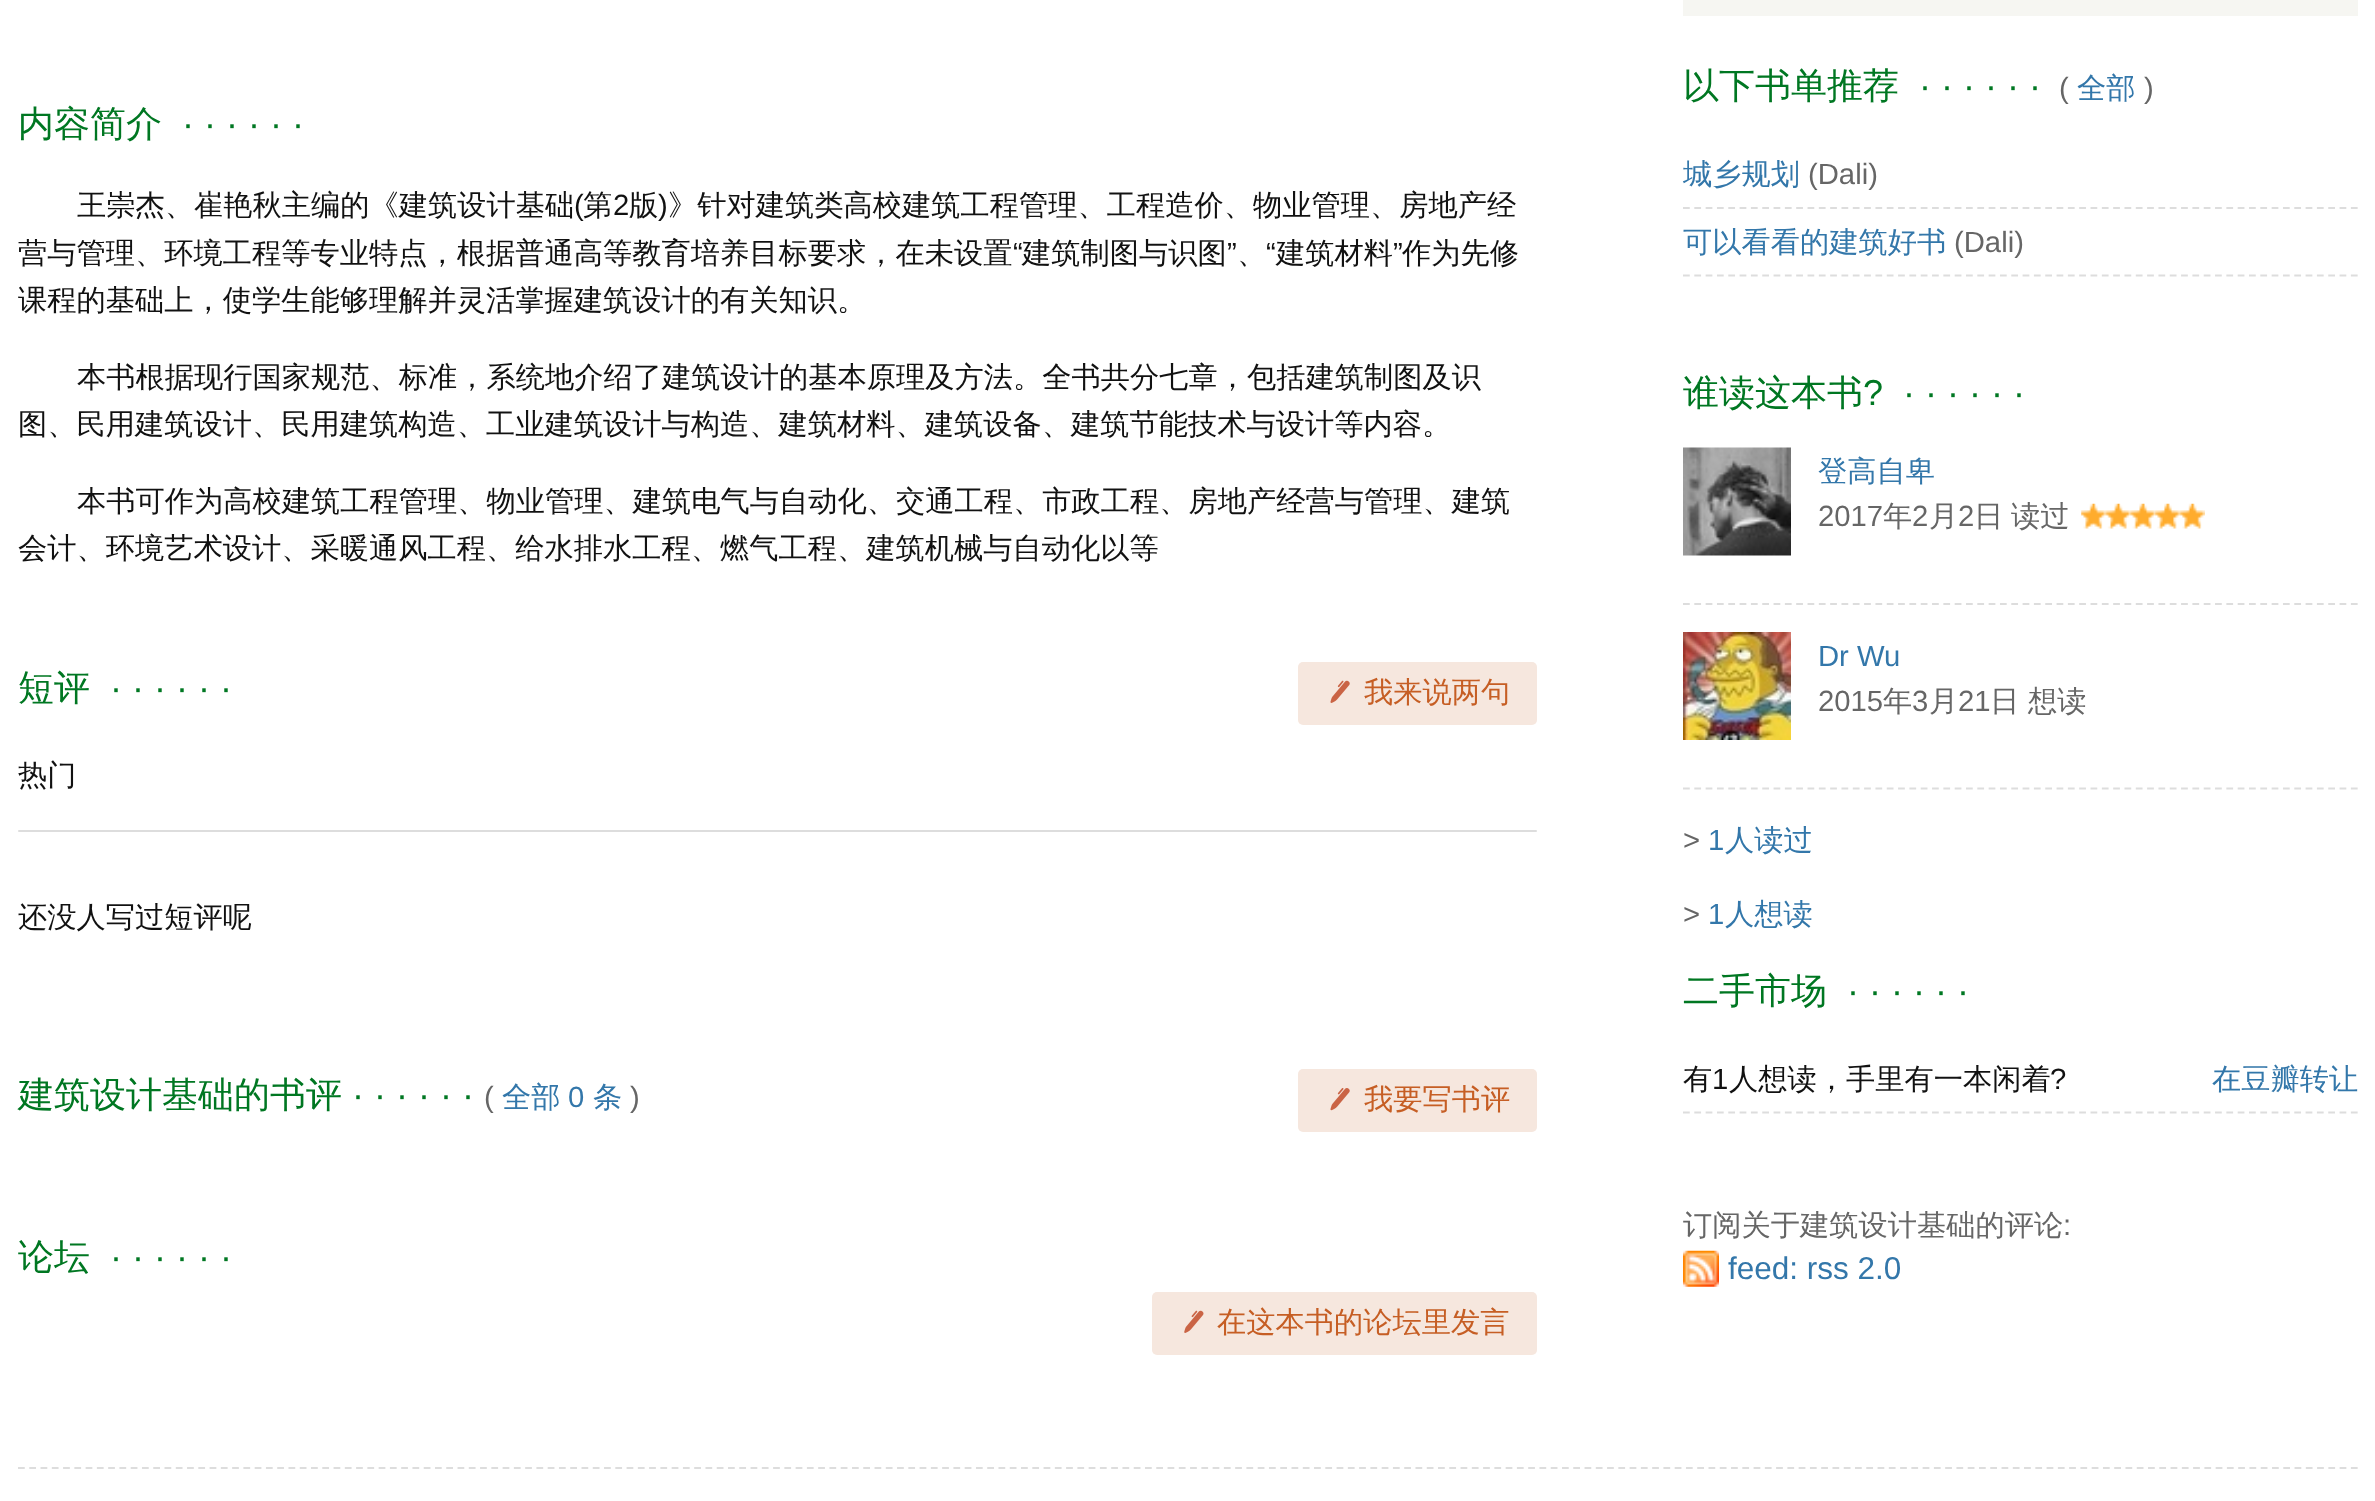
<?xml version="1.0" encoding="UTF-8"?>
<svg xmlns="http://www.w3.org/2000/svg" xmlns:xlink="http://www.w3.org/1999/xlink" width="2375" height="1501">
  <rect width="100%" height="100%" fill="#ffffff" />
  <rect x="1298" y="662" width="239" height="63" rx="5" fill="#f6e7de" />
  <image x="1330" y="680" width="20" height="23" xlink:href="image1.png" />
  <rect x="18" y="830" width="1519" height="2" rx="1" fill="#dddddd" />
  <rect x="1298" y="1069" width="239" height="63" rx="5" fill="#f6e7de" />
  <image x="1330" y="1088" width="20" height="23" xlink:href="image2.png" />
  <rect x="1152" y="1292" width="385" height="63" rx="5" fill="#f6e7de" />
  <image x="1184" y="1310" width="20" height="23" xlink:href="image3.png" />
  <rect x="1683" width="675" height="16" fill="#f6f6f2" />
  <path d="M 1683 208 h 675" fill="none" stroke="#dddddd" stroke-width="2.2" stroke-dasharray="6.75 4.57" />
  <path d="M 1683 275.5 h 675" fill="none" stroke="#dddddd" stroke-width="2.2" stroke-dasharray="6.75 4.57" />
  <image x="1683" y="447" width="108" height="109" xlink:href="image4.png" />
  <image x="2081" y="503" width="124" height="26" xlink:href="image5.png" />
  <path d="M 1683 604 h 675" fill="none" stroke="#dddddd" stroke-width="2.2" stroke-dasharray="6.75 4.57" />
  <image x="1683" y="632" width="108" height="108" xlink:href="image6.png" />
  <path d="M 1683 788.5 h 675" fill="none" stroke="#dddddd" stroke-width="2.2" stroke-dasharray="6.75 4.57" />
  <path d="M 1683 1112.5 h 675" fill="none" stroke="#dddddd" stroke-width="2.2" stroke-dasharray="6.75 4.57" />
  <image x="1683" y="1250" width="36" height="37" xlink:href="image7.png" />
  <path d="M 18 1468 h 2340" fill="none" stroke="#dddddd" stroke-width="2.2" stroke-dasharray="6.75 4.52" />
  <text x="18" y="136" style="font-family: WenQuanYi Zen Hei; font-size: 36px; font-weight: 500; fill: #007722">内容简介</text>
  <text x="182" y="136" style="font-family: Liberation Sans; font-size: 36px; fill: #007722">· · · · · ·</text>
  <text x="77" y="215" style="font-family: WenQuanYi Zen Hei; font-size: 29.25px; font-weight: 500; fill: #111111">王崇杰、崔艳秋主编的《建筑设计基础</text>
  <text x="574" y="215" style="font-family: Liberation Sans; font-size: 29.25px; fill: #111111">(</text>
  <text x="583" y="215" style="font-family: WenQuanYi Zen Hei; font-size: 29.25px; font-weight: 500; fill: #111111">第</text>
  <text x="613" y="215" style="font-family: Liberation Sans; font-size: 29.25px; fill: #111111">2</text>
  <text x="629" y="215" style="font-family: WenQuanYi Zen Hei; font-size: 29.25px; font-weight: 500; fill: #111111">版</text>
  <text x="658" y="215" style="font-family: Liberation Sans; font-size: 29.25px; fill: #111111">)</text>
  <text x="668" y="215" style="font-family: WenQuanYi Zen Hei; font-size: 29.25px; font-weight: 500; fill: #111111">》针对建筑类高校建筑工程管理、工程造价、物业管理、房地产经</text>
  <text x="18" y="263" style="font-family: WenQuanYi Zen Hei; font-size: 29.25px; font-weight: 500; fill: #111111">营与管理、环境工程等专业特点，根据普通高等教育培养目标要求，在未设置</text>
  <text x="1013" y="263" style="font-family: Liberation Sans; font-size: 29.25px; fill: #111111">“</text>
  <text x="1022" y="263" style="font-family: WenQuanYi Zen Hei; font-size: 29.25px; font-weight: 500; fill: #111111">建筑制图与识图</text>
  <text x="1227" y="263" style="font-family: Liberation Sans; font-size: 29.25px; fill: #111111">”</text>
  <text x="1266" y="263" style="font-family: Liberation Sans; font-size: 29.25px; fill: #111111">“</text>
  <text x="1276" y="263" style="font-family: WenQuanYi Zen Hei; font-size: 29.25px; font-weight: 500; fill: #111111">建筑材料</text>
  <text x="1393" y="263" style="font-family: Liberation Sans; font-size: 29.25px; fill: #111111">”</text>
  <text x="1402" y="263" style="font-family: WenQuanYi Zen Hei; font-size: 29.25px; font-weight: 500; fill: #111111">作为先修</text>
  <text x="1237" y="263" style="font-family: WenQuanYi Zen Hei; font-size: 29.25px; font-weight: 500; fill: #111111">、</text>
  <text x="18" y="310" style="font-family: WenQuanYi Zen Hei; font-size: 29.25px; font-weight: 500; fill: #111111">课程的基础上，使学生能够理解并灵活掌握建筑设计的有关知识。</text>
  <text x="77" y="387" style="font-family: WenQuanYi Zen Hei; font-size: 29.25px; font-weight: 500; fill: #111111">本书根据现行国家规范、标准，系统地介绍了建筑设计的基本原理及方法。全书共分七章，包括建筑制图及识</text>
  <text x="18" y="434" style="font-family: WenQuanYi Zen Hei; font-size: 29.25px; font-weight: 500; fill: #111111">图、民用建筑设计、民用建筑构造、工业建筑设计与构造、建筑材料、建筑设备、建筑节能技术与设计等内容。</text>
  <text x="77" y="511" style="font-family: WenQuanYi Zen Hei; font-size: 29.25px; font-weight: 500; fill: #111111">本书可作为高校建筑工程管理、物业管理、建筑电气与自动化、交通工程、市政工程、房地产经营与管理、建筑</text>
  <text x="18" y="558" style="font-family: WenQuanYi Zen Hei; font-size: 29.25px; font-weight: 500; fill: #111111">会计、环境艺术设计、采暖通风工程、给水排水工程、燃气工程、建筑机械与自动化以等</text>
  <text x="18" y="700" style="font-family: WenQuanYi Zen Hei; font-size: 36px; font-weight: 500; fill: #007722">短评</text>
  <text x="110" y="700" style="font-family: Liberation Sans; font-size: 36px; fill: #007722">· · · · · ·</text>
  <text x="1364" y="702" style="font-family: WenQuanYi Zen Hei; font-size: 29.25px; font-weight: 500; fill: #c65e24">我来说两句</text>
  <text x="18" y="785" style="font-family: WenQuanYi Zen Hei; font-size: 29.25px; font-weight: 500; fill: #111111">热门</text>
  <text x="18" y="927" style="font-family: WenQuanYi Zen Hei; font-size: 29.25px; font-weight: 500; fill: #111111">还没人写过短评呢</text>
  <text x="18" y="1107" style="font-family: WenQuanYi Zen Hei; font-size: 36px; font-weight: 500; fill: #007722">建筑设计基础的书评</text>
  <text x="352" y="1107" style="font-family: Liberation Sans; font-size: 36px; fill: #007722">· · · · · ·</text>
  <text x="484" y="1107" style="font-family: Liberation Sans; font-size: 29.25px; fill: #666666">(</text>
  <text x="502" y="1107" style="font-family: WenQuanYi Zen Hei; font-size: 29.25px; font-weight: 500; fill: #3377aa">全部</text>
  <text x="568" y="1107" style="font-family: Liberation Sans; font-size: 29.25px; fill: #3377aa">0</text>
  <text x="593" y="1107" style="font-family: WenQuanYi Zen Hei; font-size: 29.25px; font-weight: 500; fill: #3377aa">条</text>
  <text x="630" y="1107" style="font-family: Liberation Sans; font-size: 29.25px; fill: #666666">)</text>
  <text x="1364" y="1109" style="font-family: WenQuanYi Zen Hei; font-size: 29.25px; font-weight: 500; fill: #c65e24">我要写书评</text>
  <text x="18" y="1269" style="font-family: WenQuanYi Zen Hei; font-size: 36px; font-weight: 500; fill: #007722">论坛</text>
  <text x="110" y="1269" style="font-family: Liberation Sans; font-size: 36px; fill: #007722">· · · · · ·</text>
  <text x="1217" y="1332" style="font-family: WenQuanYi Zen Hei; font-size: 29.25px; font-weight: 500; fill: #c65e24">在这本书的论坛里发言</text>
  <text x="1683" y="98" style="font-family: WenQuanYi Zen Hei; font-size: 36px; font-weight: 500; fill: #007722">以下书单推荐</text>
  <text x="1919" y="98" style="font-family: Liberation Sans; font-size: 36px; fill: #007722">· · · · · ·</text>
  <text x="2059" y="98" style="font-family: Liberation Sans; font-size: 29.25px; fill: #666666">(</text>
  <text x="2077" y="98" style="font-family: WenQuanYi Zen Hei; font-size: 29.25px; font-weight: 500; fill: #3377aa">全部</text>
  <text x="2144" y="98" style="font-family: Liberation Sans; font-size: 29.25px; fill: #666666">)</text>
  <text x="1683" y="184" style="font-family: WenQuanYi Zen Hei; font-size: 29.25px; font-weight: 500; fill: #3377aa">城乡规划</text>
  <text x="1808" y="184" style="font-family: Liberation Sans; font-size: 29.25px; fill: #666666">(Dali)</text>
  <text x="1683" y="252" style="font-family: WenQuanYi Zen Hei; font-size: 29.25px; font-weight: 500; fill: #3377aa">可以看看的建筑好书</text>
  <text x="1954" y="252" style="font-family: Liberation Sans; font-size: 29.25px; fill: #666666">(Dali)</text>
  <text x="1683" y="405" style="font-family: WenQuanYi Zen Hei; font-size: 36px; font-weight: 500; fill: #007722">谁读这本书</text>
  <text x="1863" y="405" style="font-family: Liberation Sans; font-size: 36px; fill: #007722">?</text>
  <text x="1903" y="405" style="font-family: Liberation Sans; font-size: 36px; fill: #007722">· · · · · ·</text>
  <text x="1818" y="481" style="font-family: WenQuanYi Zen Hei; font-size: 29.25px; font-weight: 500; fill: #3377aa">登高自卑</text>
  <text x="1818" y="526" style="font-family: Liberation Sans; font-size: 29.25px; fill: #666666">2017</text>
  <text x="1883" y="526" style="font-family: WenQuanYi Zen Hei; font-size: 29.25px; font-weight: 500; fill: #666666">年</text>
  <text x="1912" y="526" style="font-family: Liberation Sans; font-size: 29.25px; fill: #666666">2</text>
  <text x="1929" y="526" style="font-family: WenQuanYi Zen Hei; font-size: 29.25px; font-weight: 500; fill: #666666">月</text>
  <text x="1958" y="526" style="font-family: Liberation Sans; font-size: 29.25px; fill: #666666">2</text>
  <text x="1974" y="526" style="font-family: WenQuanYi Zen Hei; font-size: 29.25px; font-weight: 500; fill: #666666">日</text>
  <text x="2011" y="526" style="font-family: WenQuanYi Zen Hei; font-size: 29.25px; font-weight: 500; fill: #666666">读过</text>
  <text x="1818" y="666" style="font-family: Liberation Sans; font-size: 29.25px; fill: #3377aa">Dr Wu</text>
  <text x="1818" y="711" style="font-family: Liberation Sans; font-size: 29.25px; fill: #666666">2015</text>
  <text x="1883" y="711" style="font-family: WenQuanYi Zen Hei; font-size: 29.25px; font-weight: 500; fill: #666666">年</text>
  <text x="1912" y="711" style="font-family: Liberation Sans; font-size: 29.25px; fill: #666666">3</text>
  <text x="1929" y="711" style="font-family: WenQuanYi Zen Hei; font-size: 29.25px; font-weight: 500; fill: #666666">月</text>
  <text x="1958" y="711" style="font-family: Liberation Sans; font-size: 29.25px; fill: #666666">21</text>
  <text x="1990" y="711" style="font-family: WenQuanYi Zen Hei; font-size: 29.25px; font-weight: 500; fill: #666666">日</text>
  <text x="2028" y="711" style="font-family: WenQuanYi Zen Hei; font-size: 29.25px; font-weight: 500; fill: #666666">想读</text>
  <text x="1683" y="850" style="font-family: Liberation Sans; font-size: 29.25px; fill: #666666">&gt;</text>
  <text x="1708" y="850" style="font-family: Liberation Sans; font-size: 29.25px; fill: #3377aa">1</text>
  <text x="1725" y="850" style="font-family: WenQuanYi Zen Hei; font-size: 29.25px; font-weight: 500; fill: #3377aa">人读过</text>
  <text x="1683" y="924" style="font-family: Liberation Sans; font-size: 29.25px; fill: #666666">&gt;</text>
  <text x="1708" y="924" style="font-family: Liberation Sans; font-size: 29.25px; fill: #3377aa">1</text>
  <text x="1725" y="924" style="font-family: WenQuanYi Zen Hei; font-size: 29.25px; font-weight: 500; fill: #3377aa">人想读</text>
  <text x="1683" y="1003" style="font-family: WenQuanYi Zen Hei; font-size: 36px; font-weight: 500; fill: #007722">二手市场</text>
  <text x="1847" y="1003" style="font-family: Liberation Sans; font-size: 36px; fill: #007722">· · · · · ·</text>
  <text x="1683" y="1089" style="font-family: WenQuanYi Zen Hei; font-size: 29.25px; font-weight: 500; fill: #111111">有</text>
  <text x="1712" y="1089" style="font-family: Liberation Sans; font-size: 29.25px; fill: #111111">1</text>
  <text x="1729" y="1089" style="font-family: WenQuanYi Zen Hei; font-size: 29.25px; font-weight: 500; fill: #111111">人想读，手里有一本闲着</text>
  <text x="2050" y="1089" style="font-family: Liberation Sans; font-size: 29.25px; fill: #111111">?</text>
  <text x="2212" y="1089" style="font-family: WenQuanYi Zen Hei; font-size: 29.25px; font-weight: 500; fill: #3377aa">在豆瓣转让</text>
  <text x="1683" y="1235" style="font-family: WenQuanYi Zen Hei; font-size: 29.25px; font-weight: 500; fill: #666666">订阅关于建筑设计基础的评论</text>
  <text x="2063" y="1235" style="font-family: Liberation Sans; font-size: 29.25px; fill: #666666">:</text>
  <text x="1728" y="1279" style="font-family: Liberation Sans; font-size: 31.5px; fill: #3377aa">feed: rss 2.0</text>
</svg>
